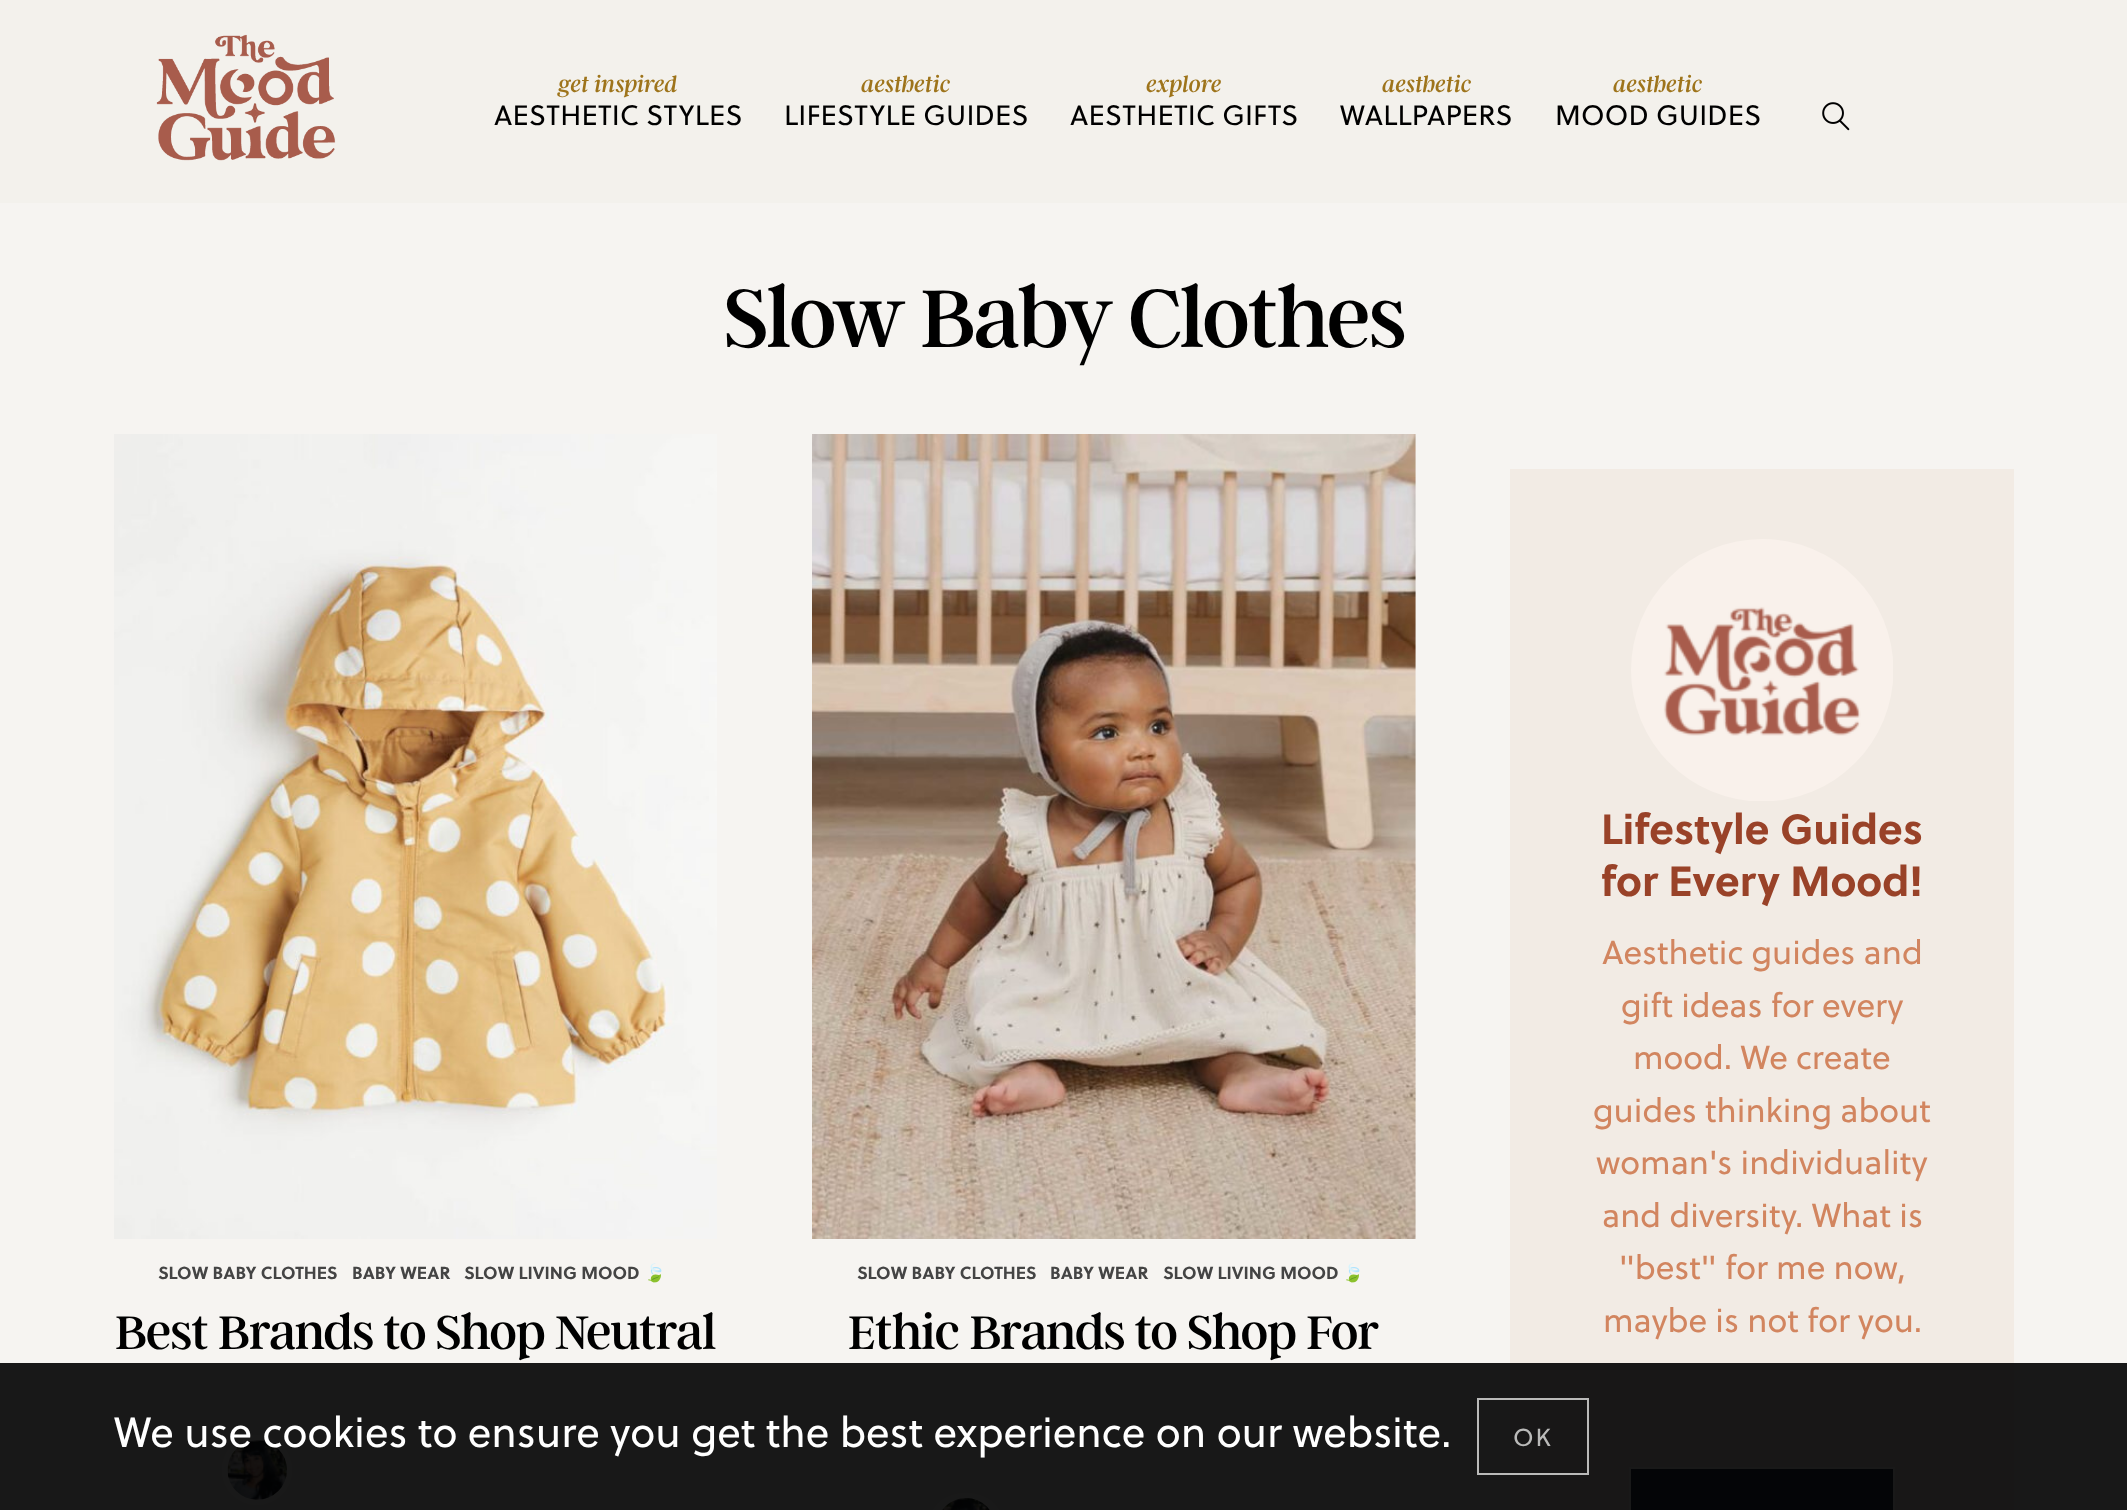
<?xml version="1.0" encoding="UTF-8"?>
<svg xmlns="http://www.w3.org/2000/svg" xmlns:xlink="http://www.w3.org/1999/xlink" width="2127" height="1510">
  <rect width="100%" height="100%" fill="#f6f4f1" />
  <rect width="2127" height="203" fill="#f3f1ec" />
  <image x="156" y="34" width="180" height="127" xlink:href="image1.png" />
  <image x="1822" y="102" width="28" height="29" xlink:href="image2.png" />
  <image x="114" y="434" width="603" height="805" xlink:href="image3.png" />
  <circle cx="257" cy="1470" r="35" fill="#fdfdfc" />
  <image x="227" y="1440" width="60" height="60" xlink:href="image4.png" />
  <image x="812" y="434" width="604" height="805" xlink:href="image5.png" />
  <rect x="931" y="1493" width="70" height="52" rx="35" fill="#fdfdfc" />
  <image x="942" y="1498" width="48" height="12" xlink:href="image6.png" />
  <rect x="1510" y="469" width="504" height="1041" fill="#f2ebe4" />
  <image x="1631" y="539" width="262" height="262" xlink:href="image7.png" />
  <rect x="1630" y="1468" width="264" height="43" fill="#283645" stroke="#ffffff" stroke-width="2" />
  <rect y="1363" width="2127" height="147" fill="#000000" fill-opacity="0.9" />
  <rect x="1478" y="1399" width="110" height="75" fill="none" stroke="#babab9" stroke-width="2" />
  <text x="558" y="92" style="font-family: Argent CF; font-size: 24.5px; font-style: italic; fill: #9e741b">get inspired</text>
  <text x="494" y="125" style="font-family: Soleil; font-size: 28px; letter-spacing: 0.2px; fill: #000000">AESTHETIC STYLES</text>
  <text x="861" y="92" style="font-family: Argent CF; font-size: 24.5px; font-style: italic; fill: #9e741b">aesthetic</text>
  <text x="784" y="125" style="font-family: Soleil; font-size: 28px; letter-spacing: 0.2px; fill: #000000">LIFESTYLE GUIDES</text>
  <text x="1146" y="92" style="font-family: Argent CF; font-size: 24.5px; font-style: italic; fill: #9e741b">explore</text>
  <text x="1070" y="125" style="font-family: Soleil; font-size: 28px; letter-spacing: 0.2px; fill: #000000">AESTHETIC GIFTS</text>
  <text x="1382" y="92" style="font-family: Argent CF; font-size: 24.5px; font-style: italic; fill: #9e741b">aesthetic</text>
  <text x="1340" y="125" style="font-family: Soleil; font-size: 28px; letter-spacing: 0.2px; fill: #000000">WALLPAPERS</text>
  <text x="1613" y="92" style="font-family: Argent CF; font-size: 24.5px; font-style: italic; fill: #9e741b">aesthetic</text>
  <text x="1555" y="125" style="font-family: Soleil; font-size: 28px; letter-spacing: 0.2px; fill: #000000">MOOD GUIDES</text>
  <text x="724" y="347" style="font-family: Argent CF; font-size: 91px; letter-spacing: -1.75px; fill: #000000">Slow Baby Clothes</text>
  <text x="158" y="1279" style="font-family: Soleil; font-size: 17.5px; font-weight: bold; fill: #444444">SLOW BABY CLOTHES</text>
  <text x="352" y="1279" style="font-family: Soleil; font-size: 17.5px; font-weight: bold; fill: #444444">BABY WEAR</text>
  <text x="464" y="1279" style="font-family: Soleil; font-size: 17.5px; font-weight: bold; fill: #444444">SLOW LIVING MOOD</text>
  <text x="644" y="1279" style="font-family: Noto Color Emoji; font-size: 17.5px; font-weight: bold; fill: #444444">🍃</text>
  <text x="115" y="1349" style="font-family: Argent CF; font-size: 52.5px; letter-spacing: -0.9px; fill: #000000">Best Brands to Shop Neutral</text>
  <text x="857" y="1279" style="font-family: Soleil; font-size: 17.5px; font-weight: bold; fill: #444444">SLOW BABY CLOTHES</text>
  <text x="1050" y="1279" style="font-family: Soleil; font-size: 17.5px; font-weight: bold; fill: #444444">BABY WEAR</text>
  <text x="1163" y="1279" style="font-family: Soleil; font-size: 17.5px; font-weight: bold; fill: #444444">SLOW LIVING MOOD</text>
  <text x="1342" y="1279" style="font-family: Noto Color Emoji; font-size: 17.5px; font-weight: bold; fill: #444444">🍃</text>
  <text x="848" y="1349" style="font-family: Argent CF; font-size: 52.5px; letter-spacing: -0.9px; fill: #000000">Ethic Brands to Shop For</text>
  <text x="1601" y="844" style="font-family: Soleil; font-size: 42px; font-weight: bold; fill: #994228">Lifestyle Guides</text>
  <text x="1601" y="896" style="font-family: Soleil; font-size: 42px; font-weight: bold; fill: #994228">for Every Mood!</text>
  <text x="1602" y="964" style="font-family: Soleil; font-size: 33.25px; fill: #d2855f">Aesthetic guides and</text>
  <text x="1621" y="1017" style="font-family: Soleil; font-size: 33.25px; fill: #d2855f">gift ideas for every</text>
  <text x="1633" y="1069" style="font-family: Soleil; font-size: 33.25px; fill: #d2855f">mood. We create</text>
  <text x="1593" y="1122" style="font-family: Soleil; font-size: 33.25px; fill: #d2855f">guides thinking about</text>
  <text x="1596" y="1174" style="font-family: Soleil; font-size: 33.25px; fill: #d2855f">woman's individuality</text>
  <text x="1602" y="1227" style="font-family: Soleil; font-size: 33.25px; fill: #d2855f">and diversity. What is</text>
  <text x="1619" y="1279" style="font-family: Soleil; font-size: 33.25px; fill: #d2855f">"best" for me now,</text>
  <text x="1603" y="1332" style="font-family: Soleil; font-size: 33.25px; fill: #d2855f">maybe is not for you.</text>
  <text x="114" y="1447" style="font-family: Soleil; font-size: 42px; fill: #ffffff">We use cookies to ensure you get the best experience on our website.</text>
  <text x="1513" y="1446" style="font-family: Soleil; font-size: 24.5px; letter-spacing: 2px; fill: #babab9">OK</text>
</svg>
